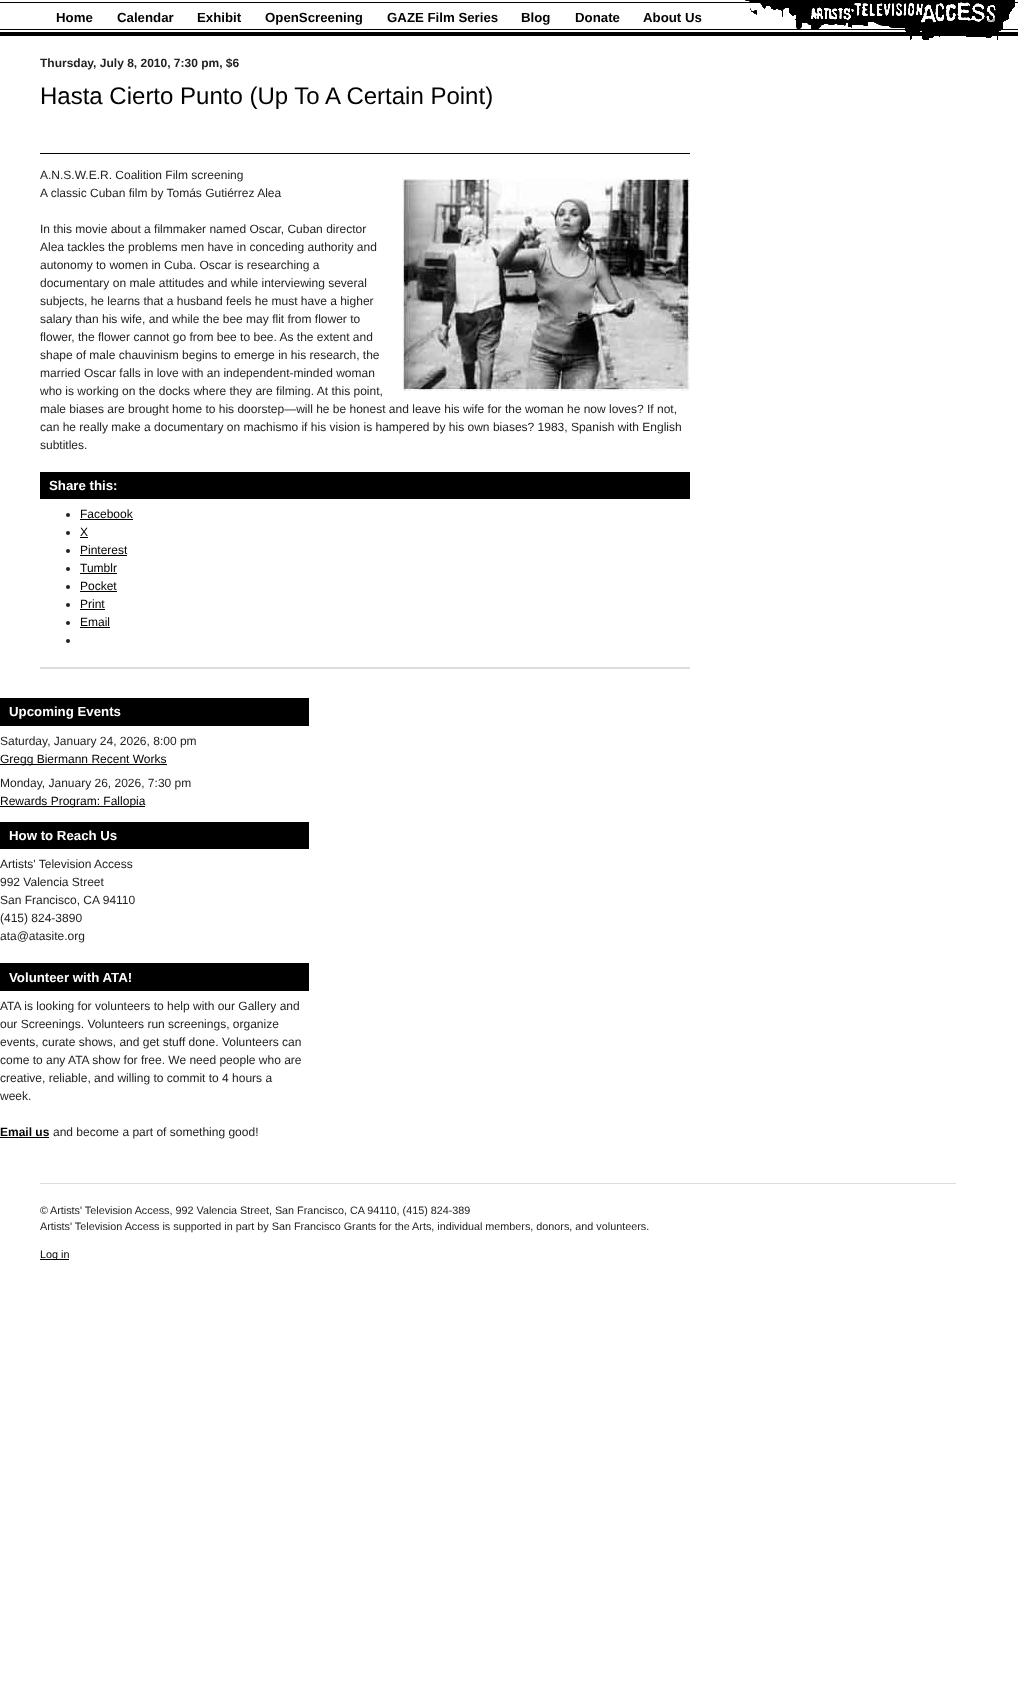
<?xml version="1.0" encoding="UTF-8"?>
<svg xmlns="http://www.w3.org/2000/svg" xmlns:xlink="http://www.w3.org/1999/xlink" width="1018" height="1686">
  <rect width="100%" height="100%" fill="#ffffff" />
  <image x="0" y="2" width="1018" height="34" xlink:href="image1.png" />
  <image x="745" y="0" width="270" height="40" xlink:href="image2.png" />
  <rect x="40" y="153" width="650" height="1" fill="#000000" />
  <image x="402" y="178" width="288" height="213" xlink:href="image3.png" />
  <rect x="40" y="472" width="650" height="27" fill="#000000" />
  <circle cx="68" cy="515" r="2" fill="#222222" />
  <rect x="80" y="519" width="53" height="1" fill="#000000" />
  <circle cx="68" cy="533" r="2" fill="#222222" />
  <rect x="80" y="537" width="8" height="1" fill="#000000" />
  <circle cx="68" cy="551" r="2" fill="#222222" />
  <rect x="80" y="555" width="47" height="1" fill="#000000" />
  <circle cx="68" cy="569" r="2" fill="#222222" />
  <rect x="80" y="573" width="37" height="1" fill="#000000" />
  <circle cx="68" cy="587" r="2" fill="#222222" />
  <rect x="80" y="591" width="37" height="1" fill="#000000" />
  <circle cx="68" cy="605" r="2" fill="#222222" />
  <rect x="80" y="609" width="25" height="1" fill="#000000" />
  <circle cx="68" cy="623" r="2" fill="#222222" />
  <rect x="80" y="627" width="30" height="1" fill="#000000" />
  <circle cx="68" cy="641" r="2" fill="#222222" />
  <rect x="40" y="667" width="650" height="2" fill="#dddddd" />
  <rect y="698" width="309" height="28" fill="#000000" />
  <rect y="764" width="167" height="1" fill="#000000" />
  <rect y="806" width="145" height="1" fill="#000000" />
  <rect y="822" width="309" height="27" fill="#000000" />
  <rect y="963" width="309" height="28" fill="#000000" />
  <rect y="1137" width="49" height="1" fill="#000000" />
  <rect x="40" y="1183" width="916" height="1" fill="#dddddd" />
  <rect x="40" y="1259" width="29" height="1" fill="#000000" />
  <text x="56" y="22" style="font-family: Liberation Sans; font-size: 13.25px; font-weight: bold; fill: #000000">Home</text>
  <text x="117" y="22" style="font-family: Liberation Sans; font-size: 13.25px; font-weight: bold; fill: #000000">Calendar</text>
  <text x="197" y="22" style="font-family: Liberation Sans; font-size: 13.25px; font-weight: bold; fill: #000000">Exhibit</text>
  <text x="265" y="22" style="font-family: Liberation Sans; font-size: 13.25px; font-weight: bold; fill: #000000">OpenScreening</text>
  <text x="387" y="22" style="font-family: Liberation Sans; font-size: 13.25px; font-weight: bold; fill: #000000">GAZE Film Series</text>
  <text x="521" y="22" style="font-family: Liberation Sans; font-size: 13.25px; font-weight: bold; fill: #000000">Blog</text>
  <text x="575" y="22" style="font-family: Liberation Sans; font-size: 13.25px; font-weight: bold; fill: #000000">Donate</text>
  <text x="643" y="22" style="font-family: Liberation Sans; font-size: 13.25px; font-weight: bold; fill: #000000">About Us</text>
  <text x="40" y="67" style="font-family: Liberation Sans; font-size: 12px; font-weight: bold; fill: #222222">Thursday, July 8, 2010, 7:30 pm, $6</text>
  <text x="40" y="179" style="font-family: Liberation Sans; font-size: 12px; fill: #222222">A.N.S.W.E.R. Coalition Film screening</text>
  <text x="40" y="197" style="font-family: Liberation Sans; font-size: 12px; fill: #222222">A classic Cuban film by Tomás Gutiérrez Alea</text>
  <text x="40" y="233" style="font-family: Liberation Sans; font-size: 12px; fill: #222222">In this movie about a filmmaker named Oscar, Cuban director</text>
  <text x="40" y="251" style="font-family: Liberation Sans; font-size: 12px; fill: #222222">Alea tackles the problems men have in conceding authority and</text>
  <text x="40" y="269" style="font-family: Liberation Sans; font-size: 12px; fill: #222222">autonomy to women in Cuba. Oscar is researching a</text>
  <text x="40" y="287" style="font-family: Liberation Sans; font-size: 12px; fill: #222222">documentary on male attitudes and while interviewing several</text>
  <text x="40" y="305" style="font-family: Liberation Sans; font-size: 12px; fill: #222222">subjects, he learns that a husband feels he must have a higher</text>
  <text x="40" y="323" style="font-family: Liberation Sans; font-size: 12px; fill: #222222">salary than his wife, and while the bee may flit from flower to</text>
  <text x="40" y="341" style="font-family: Liberation Sans; font-size: 12px; fill: #222222">flower, the flower cannot go from bee to bee. As the extent and</text>
  <text x="40" y="359" style="font-family: Liberation Sans; font-size: 12px; fill: #222222">shape of male chauvinism begins to emerge in his research, the</text>
  <text x="40" y="377" style="font-family: Liberation Sans; font-size: 12px; fill: #222222">married Oscar falls in love with an independent-minded woman</text>
  <text x="40" y="395" style="font-family: Liberation Sans; font-size: 12px; fill: #222222">who is working on the docks where they are filming. At this point,</text>
  <text x="40" y="413" style="font-family: Liberation Sans; font-size: 12px; fill: #222222">male biases are brought home to his doorstep—will he be honest and leave his wife for the woman he now loves? If not,</text>
  <text x="40" y="431" style="font-family: Liberation Sans; font-size: 12px; fill: #222222">can he really make a documentary on machismo if his vision is hampered by his own biases? 1983, Spanish with English</text>
  <text x="40" y="449" style="font-family: Liberation Sans; font-size: 12px; fill: #222222">subtitles.</text>
  <text x="49" y="490" style="font-family: Liberation Sans; font-size: 13.25px; font-weight: bold; fill: #ffffff">Share this:</text>
  <text x="80" y="518" style="font-family: Liberation Sans; font-size: 12px; fill: #000000">Facebook</text>
  <text x="80" y="536" style="font-family: Liberation Sans; font-size: 12px; fill: #000000">X</text>
  <text x="80" y="554" style="font-family: Liberation Sans; font-size: 12px; fill: #000000">Pinterest</text>
  <text x="80" y="572" style="font-family: Liberation Sans; font-size: 12px; fill: #000000">Tumblr</text>
  <text x="80" y="590" style="font-family: Liberation Sans; font-size: 12px; fill: #000000">Pocket</text>
  <text x="80" y="608" style="font-family: Liberation Sans; font-size: 12px; fill: #000000">Print</text>
  <text x="80" y="626" style="font-family: Liberation Sans; font-size: 12px; fill: #000000">Email</text>
  <text x="40" y="104" style="font-family: Liberation Sans; font-size: 24px; fill: #000000">Hasta Cierto Punto (Up To A Certain Point)</text>
  <text x="9" y="716" style="font-family: Liberation Sans; font-size: 13.25px; font-weight: bold; fill: #ffffff">Upcoming Events</text>
  <text x="0" y="745" style="font-family: Liberation Sans; font-size: 12px; fill: #222222">Saturday, January 24, 2026, 8:00 pm</text>
  <text x="0" y="763" style="font-family: Liberation Sans; font-size: 12px; fill: #000000">Gregg Biermann Recent Works</text>
  <text x="0" y="787" style="font-family: Liberation Sans; font-size: 12px; fill: #222222">Monday, January 26, 2026, 7:30 pm</text>
  <text x="0" y="805" style="font-family: Liberation Sans; font-size: 12px; fill: #000000">Rewards Program: Fallopia</text>
  <text x="9" y="840" style="font-family: Liberation Sans; font-size: 13.25px; font-weight: bold; fill: #ffffff">How to Reach Us</text>
  <text x="0" y="868" style="font-family: Liberation Sans; font-size: 12px; fill: #222222">Artists' Television Access</text>
  <text x="0" y="886" style="font-family: Liberation Sans; font-size: 12px; fill: #222222">992 Valencia Street</text>
  <text x="0" y="904" style="font-family: Liberation Sans; font-size: 12px; fill: #222222">San Francisco, CA 94110</text>
  <text x="0" y="922" style="font-family: Liberation Sans; font-size: 12px; fill: #222222">(415) 824-3890</text>
  <text x="0" y="940" style="font-family: Liberation Sans; font-size: 12px; fill: #222222">ata@atasite.org</text>
  <text x="9" y="982" style="font-family: Liberation Sans; font-size: 13.25px; font-weight: bold; fill: #ffffff">Volunteer with ATA!</text>
  <text x="0" y="1010" style="font-family: Liberation Sans; font-size: 12px; fill: #222222">ATA is looking for volunteers to help with our Gallery and</text>
  <text x="0" y="1028" style="font-family: Liberation Sans; font-size: 12px; fill: #222222">our Screenings. Volunteers run screenings, organize</text>
  <text x="0" y="1046" style="font-family: Liberation Sans; font-size: 12px; fill: #222222">events, curate shows, and get stuff done. Volunteers can</text>
  <text x="0" y="1064" style="font-family: Liberation Sans; font-size: 12px; fill: #222222">come to any ATA show for free. We need people who are</text>
  <text x="0" y="1082" style="font-family: Liberation Sans; font-size: 12px; fill: #222222">creative, reliable, and willing to commit to 4 hours a</text>
  <text x="0" y="1100" style="font-family: Liberation Sans; font-size: 12px; fill: #222222">week.</text>
  <text x="0" y="1136" style="font-family: Liberation Sans; font-size: 12px; font-weight: bold; fill: #000000">Email us</text>
  <text x="53" y="1136" style="font-family: Liberation Sans; font-size: 12px; fill: #222222">and become a part of something good!</text>
  <text x="40" y="1214" style="font-family: Liberation Sans; font-size: 10.8px; fill: #222222">©</text>
  <text x="50" y="1214" style="font-family: Liberation Sans; font-size: 10.8px; fill: #222222">Artists' Television Access, 992 Valencia Street, San Francisco, CA 94110, (415) 824-389</text>
  <text x="40" y="1230" style="font-family: Liberation Sans; font-size: 10.8px; fill: #222222">Artists' Television Access is supported in part by San Francisco Grants for the Arts, individual members, donors, and volunteers.</text>
  <text x="40" y="1258" style="font-family: Liberation Sans; font-size: 10.8px; fill: #000000">Log in</text>
</svg>
